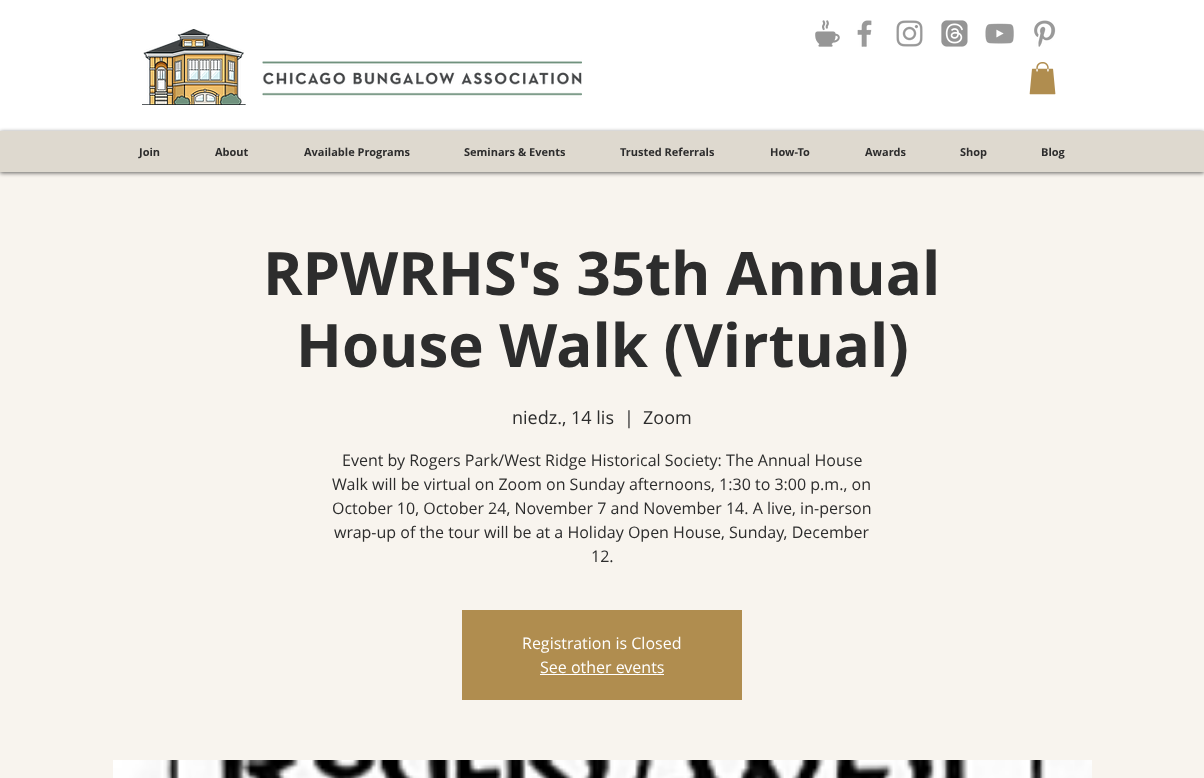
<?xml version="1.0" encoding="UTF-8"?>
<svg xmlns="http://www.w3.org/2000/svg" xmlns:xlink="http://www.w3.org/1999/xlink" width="1204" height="778">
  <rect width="100%" height="100%" fill="#ffffff" />
  <image x="142" y="29" width="440" height="76" xlink:href="image1.png" />
  <image x="815" y="20" width="25" height="27" xlink:href="image2.png" />
  <image x="857" y="20" width="15" height="27" xlink:href="image3.png" />
  <image x="896" y="20" width="27" height="27" xlink:href="image4.png" />
  <image x="941" y="20" width="27" height="27" xlink:href="image5.png" />
  <image x="985" y="23" width="29" height="21" xlink:href="image6.png" />
  <image x="1034" y="20" width="22" height="27" xlink:href="image7.png" />
  <image x="1029" y="62" width="27" height="33" xlink:href="image8.png" />
  <rect y="172" width="1204" height="606" fill="#f8f4ee" />
  <rect y="132" width="1204" height="41" fill="#000000" fill-opacity="0.6" filter="blur(2px)" />
  <rect y="131" width="1204" height="41" fill="#ded9cf" />
  <rect x="462" y="610" width="280" height="90" fill="#b08d4f" />
  <rect x="540" y="674" width="124" height="1" fill="#ffffff" />
  <image x="113" y="760" width="979" height="18" xlink:href="image9.png" />
  <text x="139" y="156" style="font-family: Open Sans; font-size: 11px; font-weight: bold; fill: #2d2d2d">Join</text>
  <text x="215" y="156" style="font-family: Open Sans; font-size: 11px; font-weight: bold; fill: #2d2d2d">About</text>
  <text x="304" y="156" style="font-family: Open Sans; font-size: 11px; font-weight: bold; fill: #2d2d2d">Available Programs</text>
  <text x="464" y="156" style="font-family: Open Sans; font-size: 11px; font-weight: bold; fill: #2d2d2d">Seminars &amp; Events</text>
  <text x="620" y="156" style="font-family: Open Sans; font-size: 11px; font-weight: bold; fill: #2d2d2d">Trusted Referrals</text>
  <text x="770" y="156" style="font-family: Open Sans; font-size: 11px; font-weight: bold; fill: #2d2d2d">How-To</text>
  <text x="865" y="156" style="font-family: Open Sans; font-size: 11px; font-weight: bold; fill: #2d2d2d">Awards</text>
  <text x="960" y="156" style="font-family: Open Sans; font-size: 11px; font-weight: bold; fill: #2d2d2d">Shop</text>
  <text x="1041" y="156" style="font-family: Open Sans; font-size: 11px; font-weight: bold; fill: #2d2d2d">Blog</text>
  <text x="263" y="295" style="font-family: Open Sans; font-size: 60px; font-weight: bold; fill: #2d2d2d">RPWRHS's 35th Annual</text>
  <text x="296" y="367" style="font-family: Open Sans; font-size: 60px; font-weight: bold; fill: #2d2d2d">House Walk (Virtual)</text>
  <text x="512" y="424" style="font-family: Open Sans; font-size: 18px; fill: #2d2d2d">niedz., 14 lis</text>
  <text x="624" y="424" style="font-family: Open Sans; font-size: 18px; fill: #2d2d2d">|</text>
  <text x="643" y="424" style="font-family: Open Sans; font-size: 18px; fill: #2d2d2d">Zoom</text>
  <text x="342" y="466" style="font-family: Open Sans; font-size: 16px; fill: #2d2d2d">Event by Rogers Park/West Ridge Historical Society: The Annual House</text>
  <text x="332" y="490" style="font-family: Open Sans; font-size: 16px; fill: #2d2d2d">Walk will be virtual on Zoom on Sunday afternoons, 1:30 to 3:00 p.m., on</text>
  <text x="332" y="514" style="font-family: Open Sans; font-size: 16px; fill: #2d2d2d">October 10, October 24, November 7 and November 14. A live, in-person</text>
  <text x="334" y="538" style="font-family: Open Sans; font-size: 16px; fill: #2d2d2d">wrap-up of the tour will be at a Holiday Open House, Sunday, December</text>
  <text x="591" y="562" style="font-family: Open Sans; font-size: 16px; fill: #2d2d2d">12.</text>
  <text x="522" y="649" style="font-family: Open Sans; font-size: 16px; fill: #ffffff">Registration is Closed</text>
  <text x="540" y="673" style="font-family: Open Sans; font-size: 16px; fill: #ffffff">See other events</text>
</svg>
